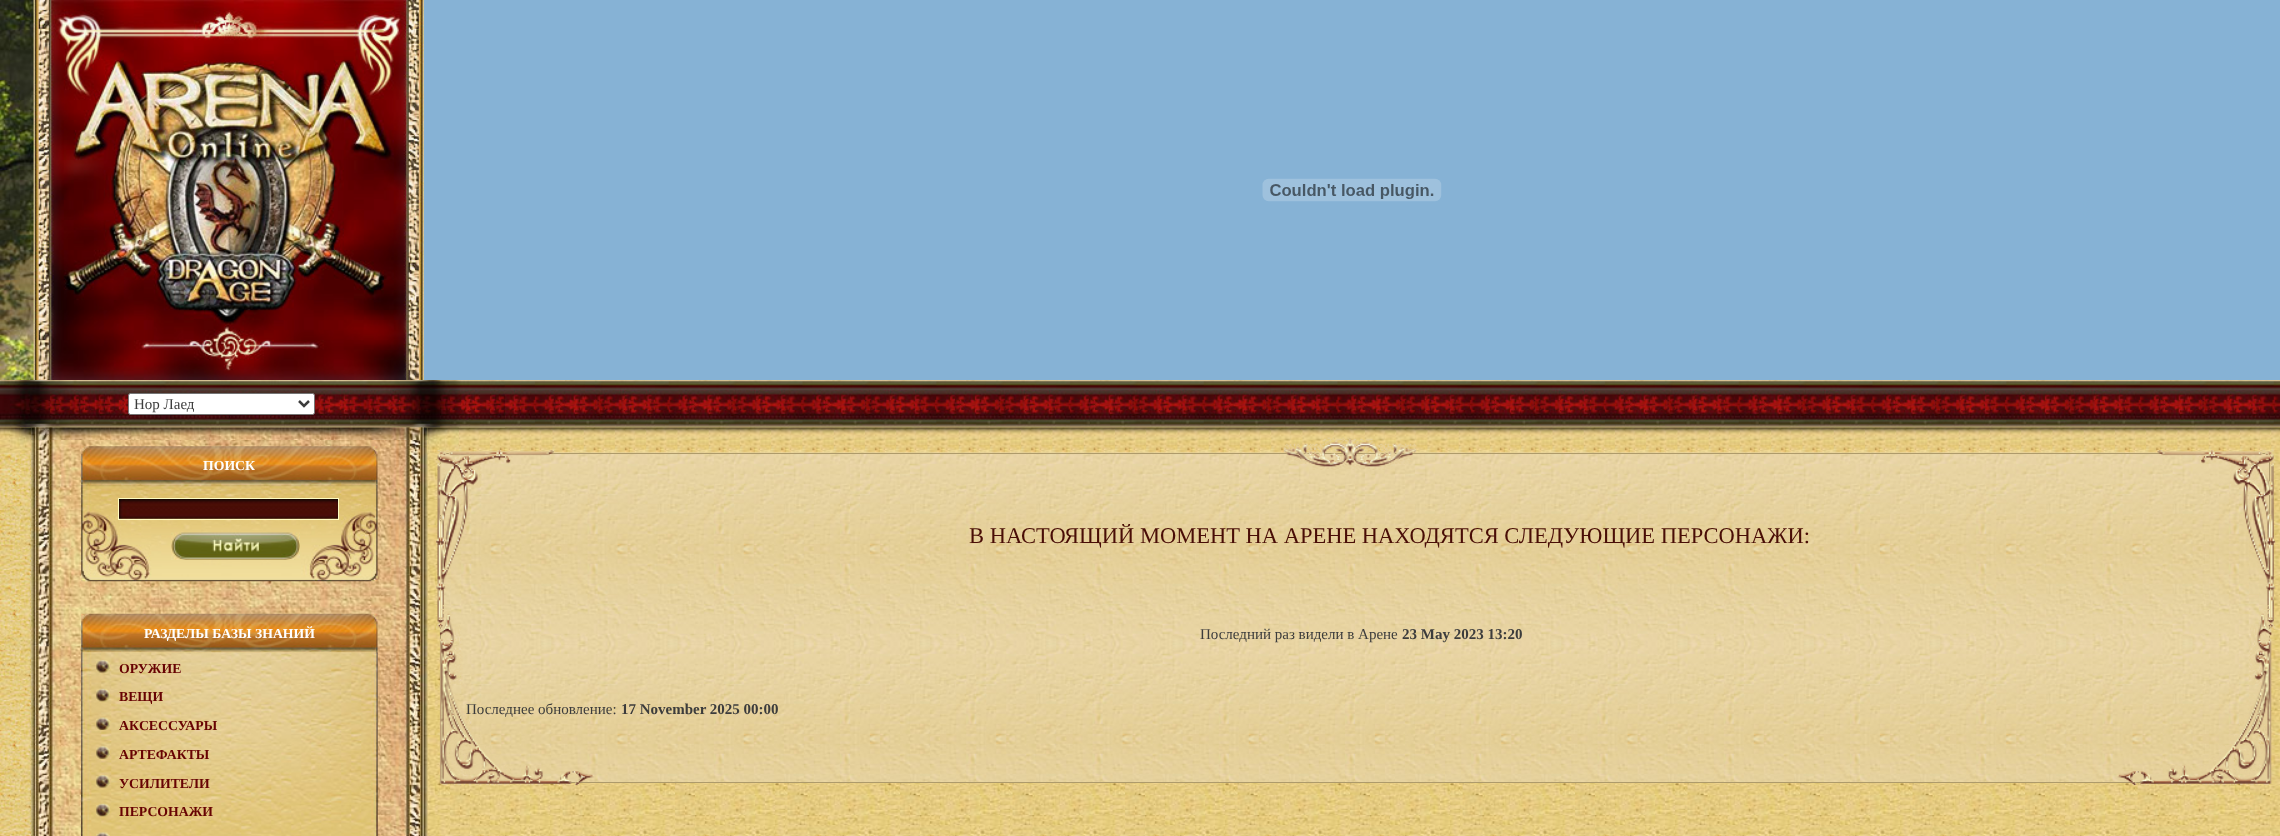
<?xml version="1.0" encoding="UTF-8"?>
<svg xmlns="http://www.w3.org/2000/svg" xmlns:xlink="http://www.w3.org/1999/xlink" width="2280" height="836">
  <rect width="100%" height="100%" fill="#ffffff" />
  <image x="0" y="0" width="2280" height="836" xlink:href="image1.png" />
  <image x="0" y="0" width="34" height="380" xlink:href="image2.png" />
  <image x="33" y="0" width="391" height="380" xlink:href="image3.png" />
  <rect x="424" width="1856" height="380" fill="#86b2d5" />
  <image x="1262" y="178" width="180" height="24" xlink:href="image4.png" />
  <image x="0" y="380" width="2280" height="48" xlink:href="image5.png" />
  <image x="0" y="427" width="32" height="409" xlink:href="image7.png" />
  <image x="31" y="427" width="397" height="409" xlink:href="image9.png" />
  <image x="427" y="427" width="1853" height="26" xlink:href="image25.png" />
  <image x="427" y="427" width="32" height="26" xlink:href="image26.png" />
  <image x="0" y="380" width="505" height="48" xlink:href="image6.png" />
  <rect x="128.5" y="393.5" width="186" height="21" rx="2" fill="#ffffff" stroke="#767676" />
  <path d="M 299 401 l 5 5 l 5 -5" fill="none" stroke="#3c3c3c" stroke-width="2.5" />
  <image x="0" y="427" width="32" height="26" xlink:href="image8.png" />
  <image x="31" y="427" width="397" height="13" xlink:href="image10.png" />
  <image x="81" y="446" width="297" height="39" xlink:href="image11.png" />
  <image x="81" y="485" width="297" height="97" xlink:href="image12.png" />
  <image x="119" y="499" width="219" height="20" xlink:href="image13.png" />
  <rect x="118.5" y="498.5" width="220" height="21" fill="none" stroke="#fffdc1" />
  <image x="171" y="532" width="129" height="28" xlink:href="image14.png" />
  <image x="81" y="613" width="297" height="40" xlink:href="image15.png" />
  <image x="81" y="652" width="297" height="184" xlink:href="image16.png" />
  <image x="81" y="652" width="297" height="184" xlink:href="image17.png" />
  <image x="96" y="660" width="14" height="13" xlink:href="image18.png" />
  <image x="96" y="688" width="14" height="14" xlink:href="image19.png" />
  <image x="96" y="717" width="14" height="13" xlink:href="image20.png" />
  <image x="96" y="746" width="14" height="13" xlink:href="image21.png" />
  <image x="96" y="775" width="14" height="13" xlink:href="image22.png" />
  <image x="96" y="803" width="14" height="14" xlink:href="image23.png" />
  <image x="96" y="832" width="14" height="4" xlink:href="image24.png" />
  <image x="440" y="452" width="1829" height="330" xlink:href="image27.png" />
  <rect x="440.5" y="453.5" width="1829" height="329" fill="none" stroke="#ae9b6b" />
  <image x="436" y="450" width="118" height="179" xlink:href="image28.png" />
  <image x="1283" y="437" width="134" height="33" xlink:href="image29.png" />
  <image x="2157" y="450" width="119" height="179" xlink:href="image30.png" />
  <image x="439" y="605" width="155" height="181" xlink:href="image31.png" />
  <image x="2117" y="605" width="155" height="181" xlink:href="image32.png" />
  <text x="134" y="409" style="font-family: Liberation Serif; font-size: 15px; fill: #3c3c3c">Нор Лаед</text>
  <text x="203" y="470" style="font-family: Liberation Serif; font-size: 13.75px; font-weight: bold; fill: #ffffff">ПОИСК</text>
  <text x="144" y="638" style="font-family: Liberation Serif; font-size: 13.75px; font-weight: bold; fill: #ffffff">РАЗДЕЛЫ БАЗЫ ЗНАНИЙ</text>
  <text x="119" y="673" style="font-family: Liberation Serif; font-size: 13.75px; font-weight: bold; fill: #670303">ОРУЖИЕ</text>
  <text x="119" y="701" style="font-family: Liberation Serif; font-size: 13.75px; font-weight: bold; fill: #670303">ВЕЩИ</text>
  <text x="119" y="730" style="font-family: Liberation Serif; font-size: 13.75px; font-weight: bold; fill: #670303">АКCЕСCУАРЫ</text>
  <text x="119" y="759" style="font-family: Liberation Serif; font-size: 13.75px; font-weight: bold; fill: #670303">АРТЕФАКТЫ</text>
  <text x="119" y="788" style="font-family: Liberation Serif; font-size: 13.75px; font-weight: bold; fill: #670303">УСИЛИТЕЛИ</text>
  <text x="119" y="816" style="font-family: Liberation Serif; font-size: 13.75px; font-weight: bold; fill: #670303">ПЕРСОНАЖИ</text>
  <text x="969" y="543" style="font-family: Liberation Serif; font-size: 22.5px; fill: #490d06">В НАСТОЯЩИЙ МОМЕНТ НА АРЕНЕ НАХОДЯТСЯ СЛЕДУЮЩИЕ ПЕРСОНАЖИ:</text>
  <text x="1200" y="639" style="font-family: Liberation Serif; font-size: 15px; fill: #3c3c3c">Последний раз видели в Арене</text>
  <text x="1402" y="639" style="font-family: Liberation Serif; font-size: 15px; font-weight: bold; fill: #3c3c3c">23 May 2023 13:20</text>
  <text x="466" y="714" style="font-family: Liberation Serif; font-size: 15px; fill: #3c3c3c">Последнее обновление:</text>
  <text x="621" y="714" style="font-family: Liberation Serif; font-size: 15px; font-weight: bold; fill: #3c3c3c">17 November 2025 00:00</text>
</svg>
